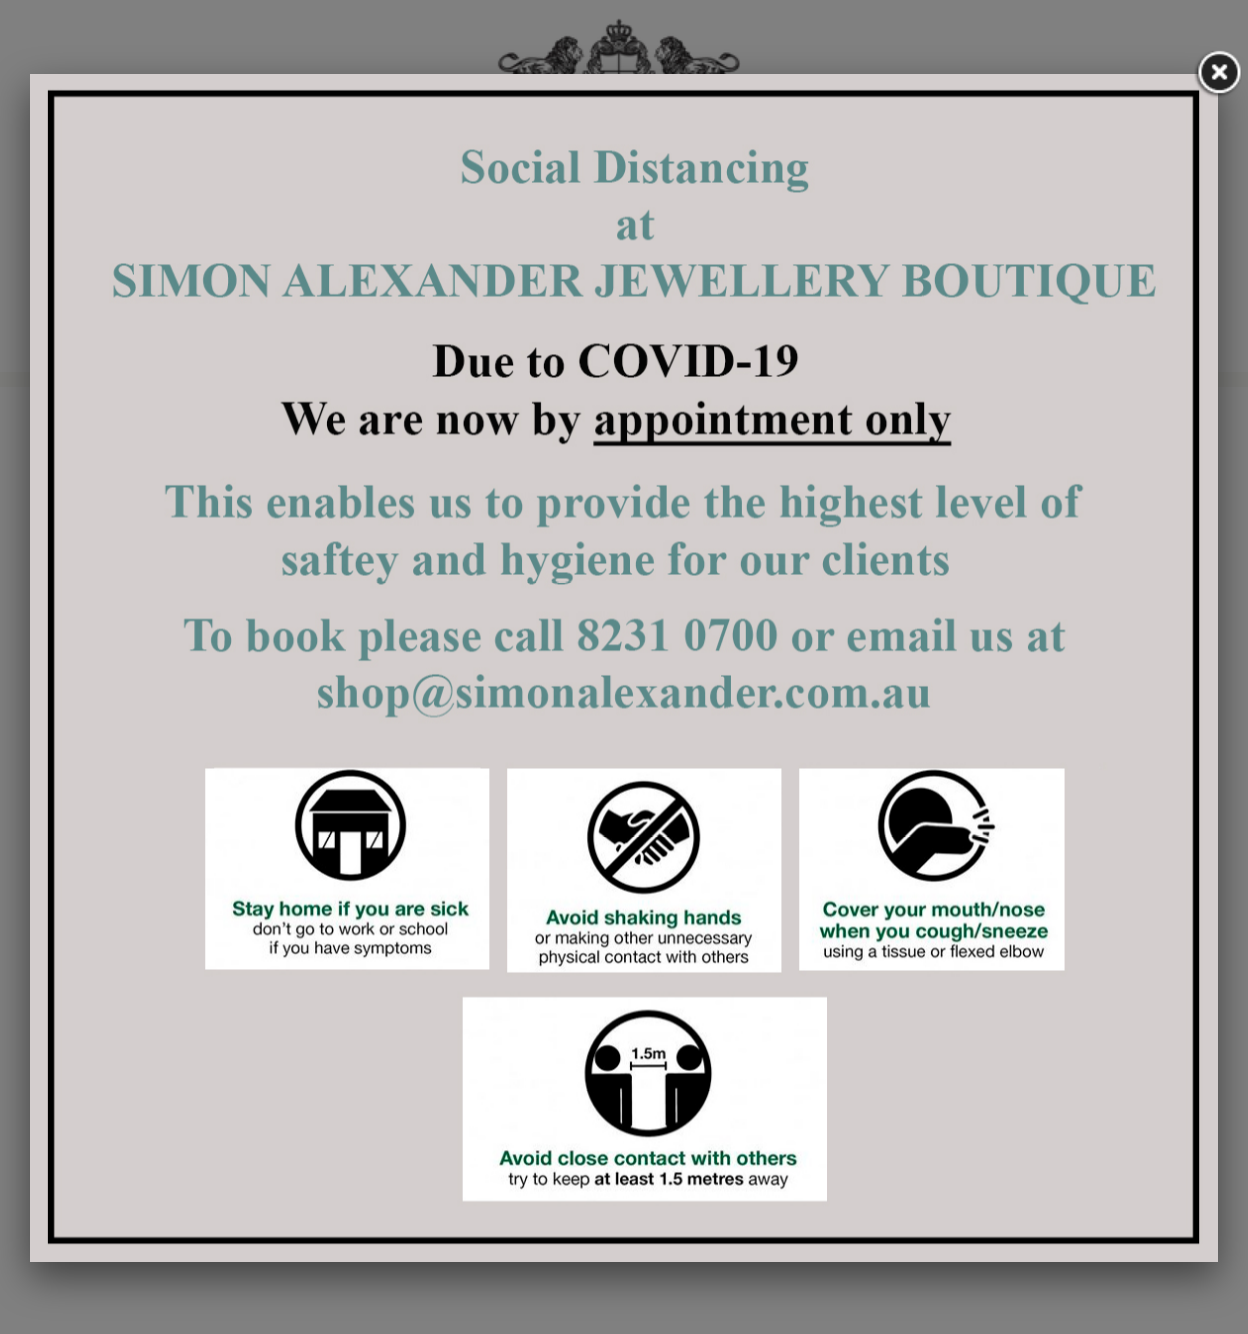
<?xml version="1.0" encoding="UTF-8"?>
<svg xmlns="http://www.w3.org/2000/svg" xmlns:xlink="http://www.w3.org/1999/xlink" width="1248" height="1334">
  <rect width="100%" height="100%" fill="#7d7d7b" />
  <rect width="1248" height="372" fill="#808080" />
  <image x="497" y="18" width="244" height="56" xlink:href="image1.png" />
  <rect y="387" width="1248" height="947" fill="#808080" />
  <rect x="30" y="89" width="1188" height="1188" fill="#000000" fill-opacity="0.5" filter="blur(19px)" />
  <image x="30" y="74" width="1188" height="1188" xlink:href="image3.png" />
  <image x="1194" y="50" width="48" height="48" xlink:href="image2.png" />
</svg>
